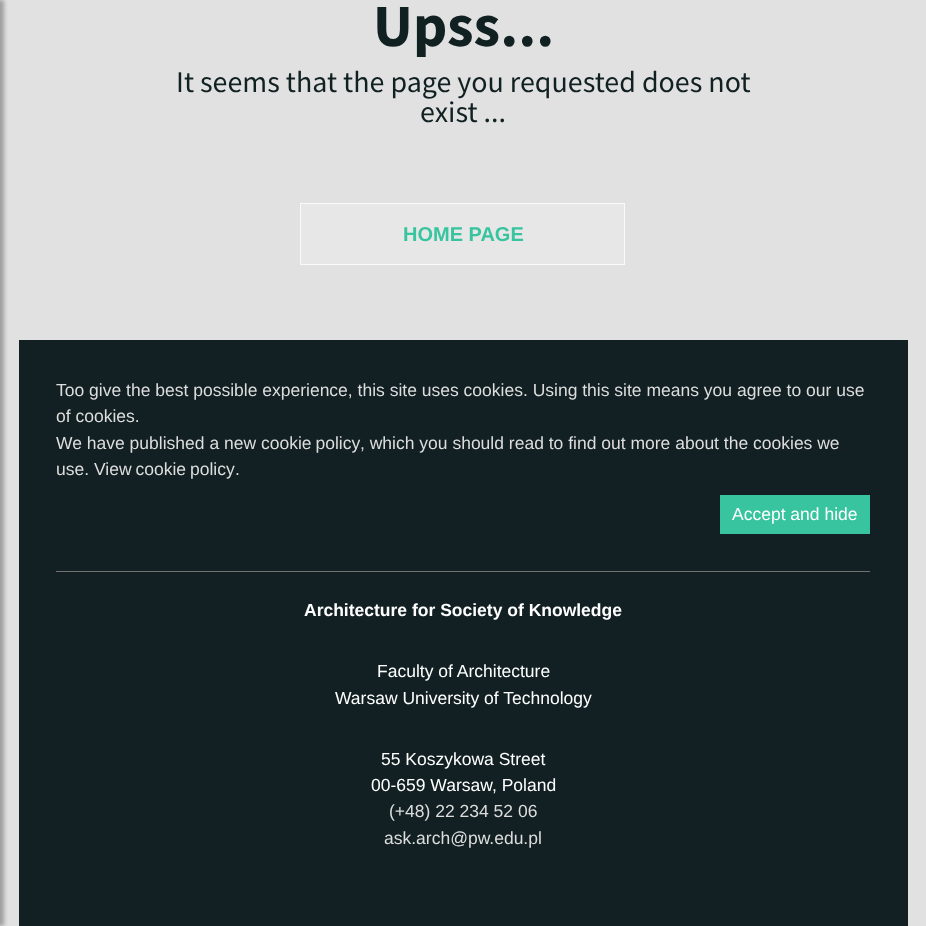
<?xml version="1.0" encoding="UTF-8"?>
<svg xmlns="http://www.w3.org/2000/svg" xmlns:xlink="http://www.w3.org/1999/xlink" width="926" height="926">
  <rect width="100%" height="100%" fill="#e1e1e1" />
  <rect x="-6" width="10" height="926" fill="#000000" fill-opacity="0.3" filter="blur(2px)" />
  <rect x="300.5" y="203.5" width="324" height="61" fill="#e7e7e7" stroke="#fafafa" />
  <rect x="19" y="340" width="889" height="586" fill="#122023" />
  <rect x="56" y="571" width="814" height="1" fill="#727272" />
  <rect x="720" y="495" width="150" height="39" fill="#37c49f" />
  <text x="373" y="46" style="font-family: Source Sans Pro; font-size: 60px; font-weight: bold; fill: #112021">Upss...</text>
  <text x="176" y="92" style="font-family: Source Sans Pro; font-size: 30px; fill: #112021">It seems that the page you requested does not</text>
  <text x="420" y="122" style="font-family: Source Sans Pro; font-size: 30px; fill: #112021">exist ...</text>
  <text x="403" y="241" style="font-family: Liberation Sans; font-size: 20px; font-weight: bold; fill: #37c49f">HOME PAGE</text>
  <text x="56" y="396" style="font-family: Liberation Sans; font-size: 17.5px; fill: #dddddd">Too give the best possible experience, this site uses cookies. Using this site means you agree to our use</text>
  <text x="56" y="422" style="font-family: Liberation Sans; font-size: 17.5px; fill: #dddddd">of cookies.</text>
  <text x="56" y="449" style="font-family: Liberation Sans; font-size: 17.5px; fill: #dddddd">We have published a new</text>
  <text x="261" y="449" word-spacing="-1" style="font-family: Liberation Sans; font-size: 17.5px; fill: #dddddd">cookie policy</text>
  <text x="360" y="449" style="font-family: Liberation Sans; font-size: 17.5px; fill: #dddddd">, which you should read to find out more about the cookies we</text>
  <text x="56" y="475" style="font-family: Liberation Sans; font-size: 17.5px; fill: #dddddd">use.</text>
  <text x="94" y="475" word-spacing="-1" style="font-family: Liberation Sans; font-size: 17.5px; fill: #dddddd">View cookie policy</text>
  <text x="235" y="475" style="font-family: Liberation Sans; font-size: 17.5px; fill: #dddddd">.</text>
  <text x="732" y="520" style="font-family: Liberation Sans; font-size: 17.5px; fill: #ffffff">Accept and hide</text>
  <text x="304" y="616" style="font-family: Liberation Sans; font-size: 17.5px; font-weight: bold; fill: #ffffff">Architecture for Society of Knowledge</text>
  <text x="377" y="677" style="font-family: Liberation Sans; font-size: 17.5px; fill: #ffffff">Faculty of Architecture</text>
  <text x="335" y="704" style="font-family: Liberation Sans; font-size: 17.5px; fill: #ffffff">Warsaw University of Technology</text>
  <text x="381" y="765" style="font-family: Liberation Sans; font-size: 17.5px; fill: #ffffff">55 Koszykowa Street</text>
  <text x="371" y="791" style="font-family: Liberation Sans; font-size: 17.5px; fill: #ffffff">00-659 Warsaw, Poland</text>
  <text x="389" y="817" style="font-family: Liberation Sans; font-size: 17.5px; fill: #dddddd">(+48) 22 234 52 06</text>
  <text x="384" y="844" style="font-family: Liberation Sans; font-size: 17.5px; fill: #dddddd">ask.arch@pw.edu.pl</text>
</svg>
